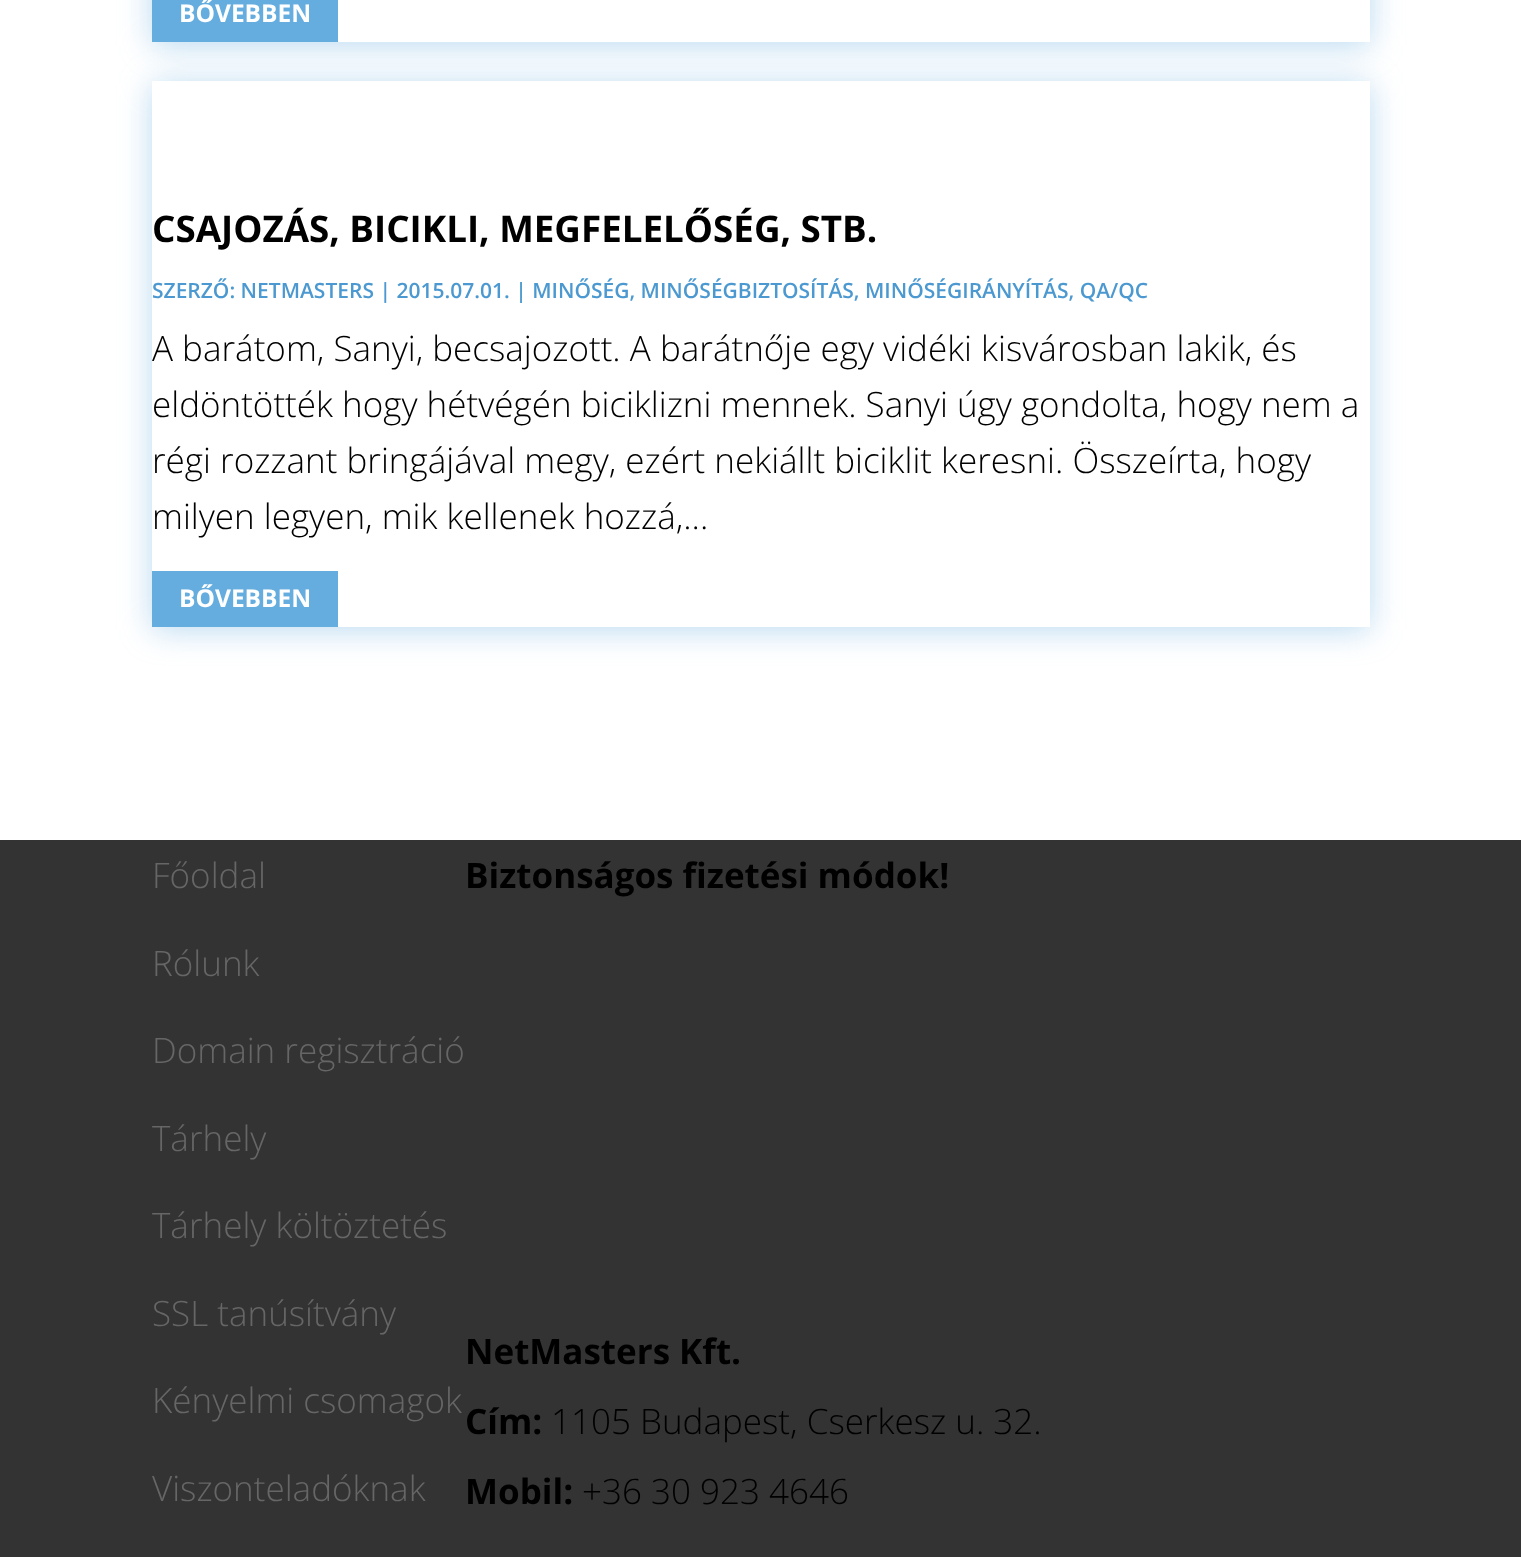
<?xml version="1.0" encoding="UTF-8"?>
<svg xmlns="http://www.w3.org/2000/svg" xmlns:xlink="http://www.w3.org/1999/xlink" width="1521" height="1557">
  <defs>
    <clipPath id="clip1"><path d="M 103 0 h 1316 v 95 h -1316 z m 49 -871 h 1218 v 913 h -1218 z" clip-rule="evenodd" /></clipPath>
    <clipPath id="clip2"><path d="M 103 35 h 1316 v 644 h -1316 z m 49 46 h 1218 v 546 h -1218 z" clip-rule="evenodd" /></clipPath>
  </defs>
  <rect width="100%" height="100%" fill="#ffffff" />
  <g clip-path="url(#clip1)">
    <rect x="152" y="-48" width="1218" height="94" fill="#66addf" fill-opacity="0.45" filter="blur(16px)" />
  </g>
  <g clip-path="url(#clip2)">
    <rect x="152" y="84" width="1218" height="546" fill="#66addf" fill-opacity="0.45" filter="blur(16px)" />
  </g>
  <rect x="152" width="186" height="42" fill="#66addf" />
  <rect x="152" y="571" width="186" height="56" fill="#66addf" />
  <rect y="840" width="1521" height="717" fill="#333333" />
  <text x="179" y="22" style="font-family: Open Sans; font-size: 24.5px; font-weight: bold; fill: #ffffff">BŐVEBBEN</text>
  <text x="152" y="242" style="font-family: Open Sans; font-size: 36.75px; font-weight: bold; fill: #000000">CSAJOZÁS, BICIKLI, MEGFELELŐSÉG, STB.</text>
  <text x="152" y="298" style="font-family: Open Sans; font-size: 21px; font-weight: 600; fill: #4b99d0">SZERZŐ: NETMASTERS | 2015.07.01. | MINŐSÉG, MINŐSÉGBIZTOSÍTÁS, MINŐSÉGIRÁNYÍTÁS, QA/QC</text>
  <text x="152" y="361" style="font-family: Open Sans; font-size: 35px; font-weight: 300; fill: #000000">A barátom, Sanyi, becsajozott. A barátnője egy vidéki kisvárosban lakik, és</text>
  <text x="152" y="417" style="font-family: Open Sans; font-size: 35px; font-weight: 300; fill: #000000">eldöntötték hogy hétvégén biciklizni mennek. Sanyi úgy gondolta, hogy nem a</text>
  <text x="152" y="473" style="font-family: Open Sans; font-size: 35px; font-weight: 300; fill: #000000">régi rozzant bringájával megy, ezért nekiállt biciklit keresni. Összeírta, hogy</text>
  <text x="152" y="529" style="font-family: Open Sans; font-size: 35px; font-weight: 300; fill: #000000">milyen legyen, mik kellenek hozzá,...</text>
  <text x="179" y="607" style="font-family: Open Sans; font-size: 24.5px; font-weight: bold; fill: #ffffff">BŐVEBBEN</text>
  <text x="152" y="888" style="font-family: Open Sans; font-size: 35px; font-weight: 300; fill: #666666">Főoldal</text>
  <text x="152" y="976" style="font-family: Open Sans; font-size: 35px; font-weight: 300; fill: #666666">Rólunk</text>
  <text x="152" y="1063" style="font-family: Open Sans; font-size: 35px; font-weight: 300; fill: #666666">Domain regisztráció</text>
  <text x="152" y="1151" style="font-family: Open Sans; font-size: 35px; font-weight: 300; fill: #666666">Tárhely</text>
  <text x="152" y="1238" style="font-family: Open Sans; font-size: 35px; font-weight: 300; fill: #666666">Tárhely költöztetés</text>
  <text x="152" y="1326" style="font-family: Open Sans; font-size: 35px; font-weight: 300; fill: #666666">SSL tanúsítvány</text>
  <text x="152" y="1413" style="font-family: Open Sans; font-size: 35px; font-weight: 300; fill: #666666">Kényelmi csomagok</text>
  <text x="152" y="1501" style="font-family: Open Sans; font-size: 35px; font-weight: 300; fill: #666666">Viszonteladóknak</text>
  <text x="465" y="888" style="font-family: Open Sans; font-size: 35px; font-weight: bold; fill: #000000">Biztonságos fizetési módok!</text>
  <text x="465" y="1364" style="font-family: Open Sans; font-size: 35px; font-weight: bold; fill: #000000">NetMasters Kft.</text>
  <text x="465" y="1434" style="font-family: Open Sans; font-size: 35px; font-weight: bold; fill: #000000">Cím:</text>
  <text x="551" y="1434" style="font-family: Open Sans; font-size: 35px; font-weight: 300; fill: #000000">1105 Budapest, Cserkesz u. 32.</text>
  <text x="465" y="1504" style="font-family: Open Sans; font-size: 35px; font-weight: bold; fill: #000000">Mobil:</text>
  <text x="582" y="1504" style="font-family: Open Sans; font-size: 35px; font-weight: 300; fill: #000000">+36 30 923 4646</text>
</svg>
